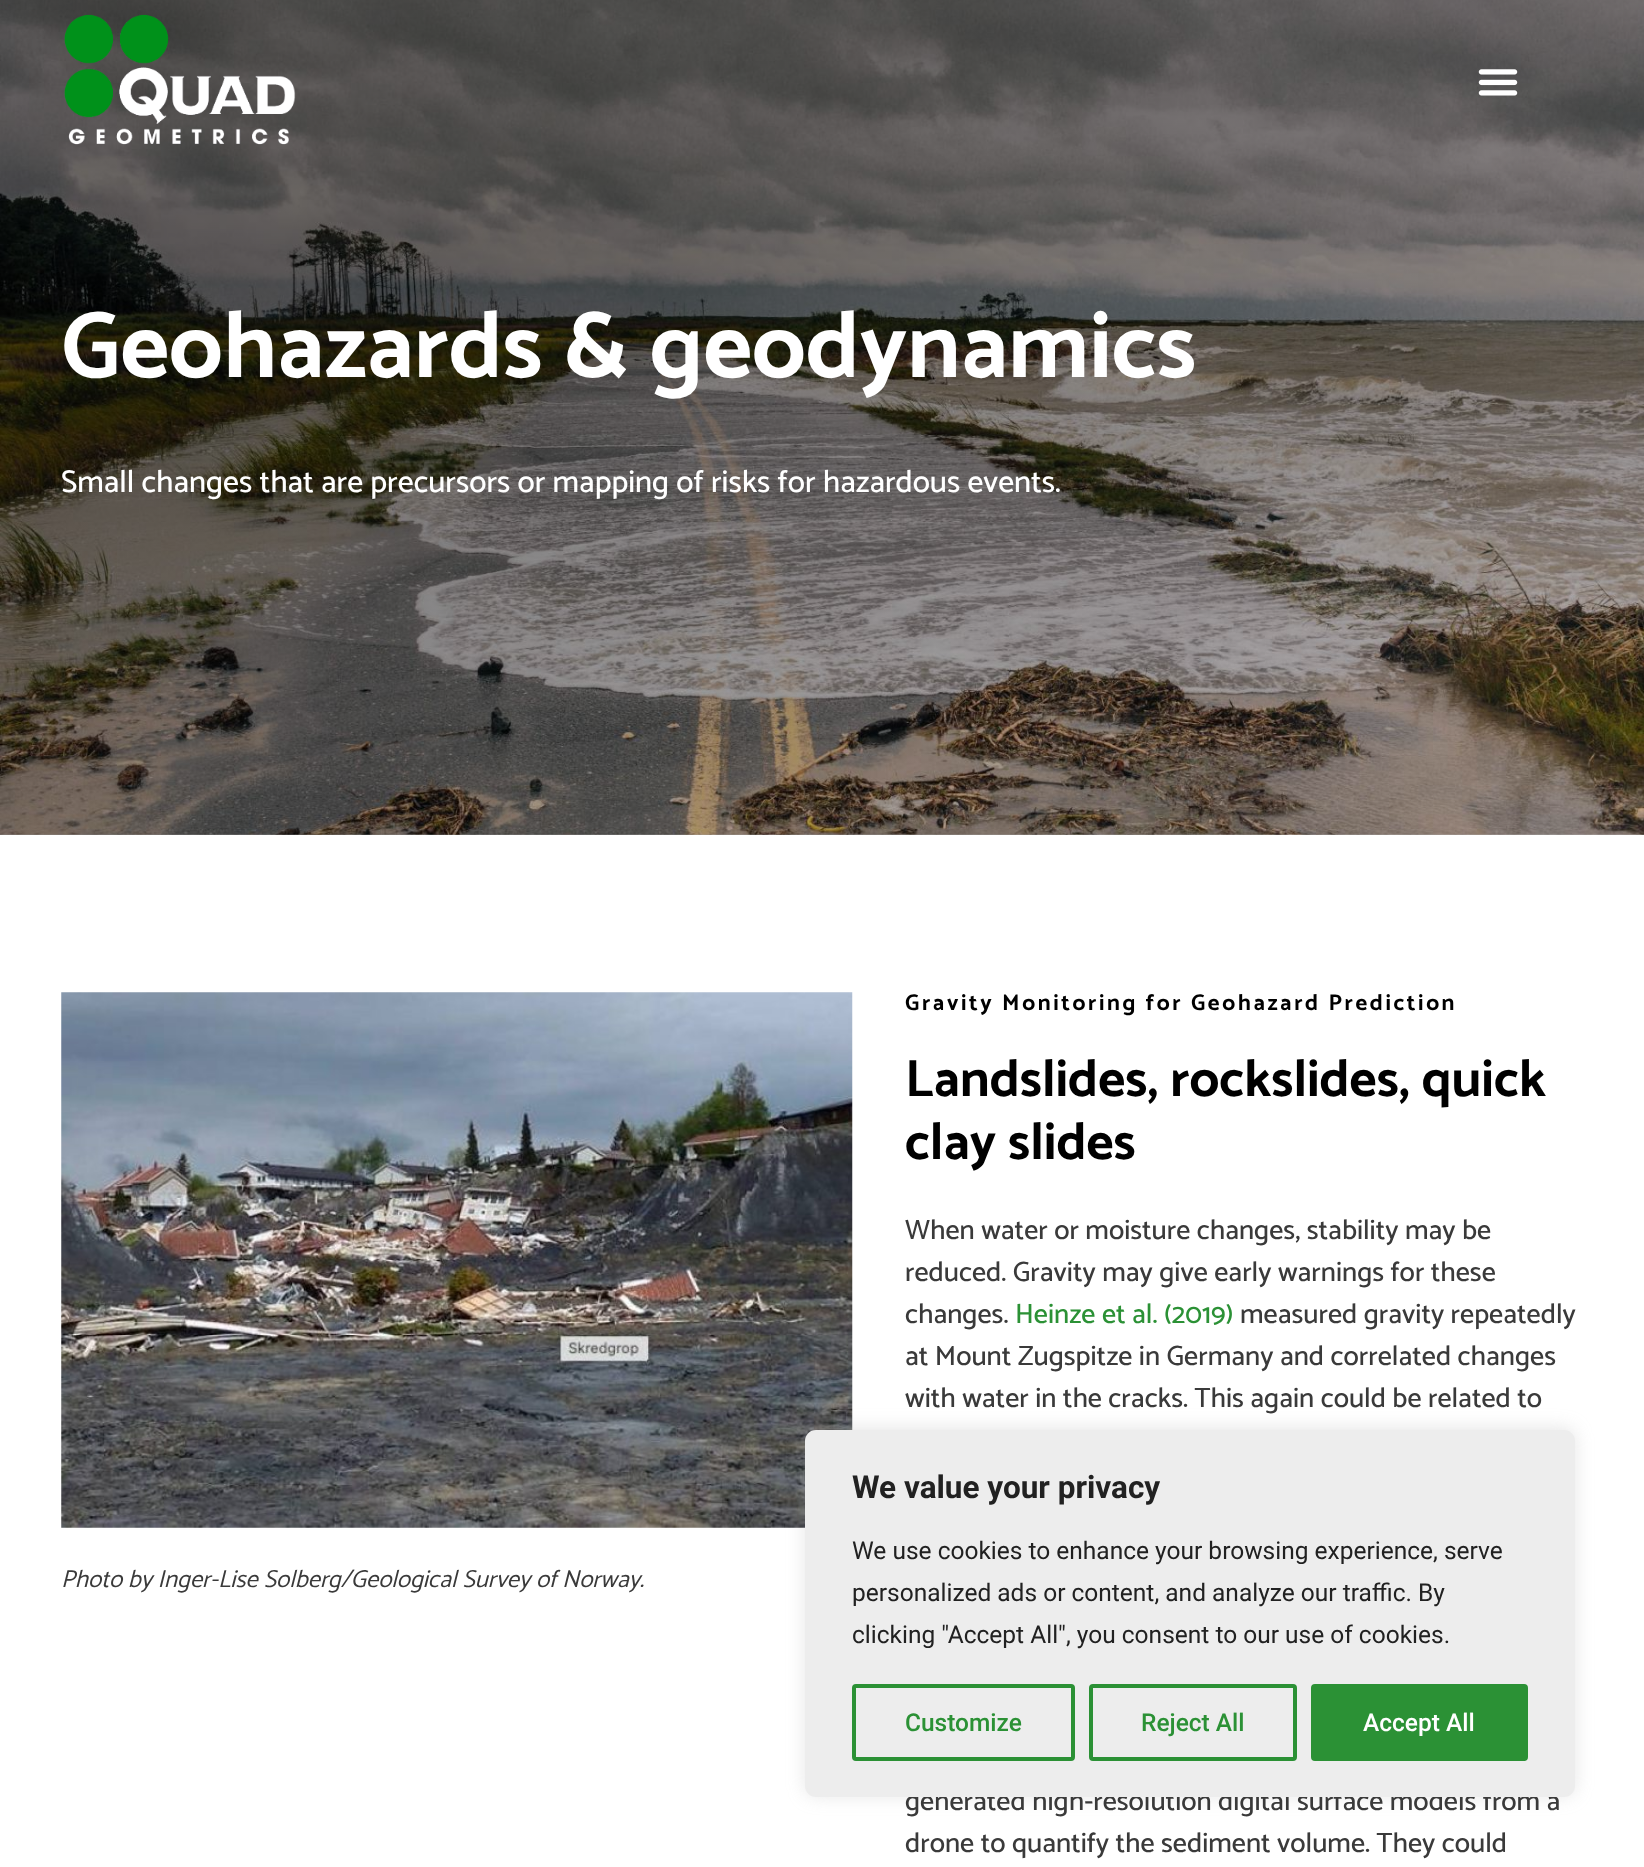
<?xml version="1.0" encoding="UTF-8"?>
<svg xmlns="http://www.w3.org/2000/svg" xmlns:xlink="http://www.w3.org/1999/xlink" width="1644" height="1867">
  <defs>
    <linearGradient id="g1" gradientUnits="userSpaceOnUse" x1="590" y1="-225" x2="1055" y2="1050"><stop offset="0.28" stop-color="#000000" stop-opacity="0.55" /><stop offset="0.96" stop-color="#020101" stop-opacity="0.25" /></linearGradient>
  </defs>
  <rect width="100%" height="100%" fill="#ffffff" />
  <image x="0" y="0" width="1644" height="835" xlink:href="image3.png" />
  <rect width="1644" height="835" fill="url(#g1)" />
  <image x="64" y="14" width="232" height="131" xlink:href="image1.png" />
  <image x="1478" y="69" width="40" height="27" xlink:href="image2.png" />
  <image x="61" y="992" width="792" height="536" xlink:href="image4.png" />
  <rect x="805" y="1428" width="770" height="368" rx="11" fill="#acabab" fill-opacity="0.3" filter="blur(9px)" />
  <text x="61" y="377" style="font-family: Catamaran; font-size: 94.5px; font-weight: bold; fill: #ffffff">Geohazards &amp; geodynamics</text>
  <text x="61" y="492" style="font-family: Catamaran; font-size: 31.5px; font-weight: 500; fill: #ffffff">Small changes that are precursors or mapping of risks for hazardous events.</text>
  <text x="61" y="1587" style="font-family: Catamaran; font-size: 24.5px; font-style: italic; fill: #3a3a3a">Photo by Inger-Lise Solberg/Geological Survey of Norway.</text>
  <text x="905" y="1010" style="font-family: Catamaran; font-size: 22.75px; font-weight: bold; letter-spacing: 2.6px; fill: #000000">Gravity Monitoring for Geohazard Prediction</text>
  <text x="905" y="1096" style="font-family: Catamaran; font-size: 52.5px; font-weight: bold; fill: #000000">Landslides, rockslides, quick</text>
  <text x="905" y="1159" style="font-family: Catamaran; font-size: 52.5px; font-weight: bold; fill: #000000">clay slides</text>
  <text x="905" y="1239" style="font-family: Catamaran; font-size: 28px; font-weight: 500; fill: #3a3a3a">When water or moisture changes, stability may be</text>
  <text x="905" y="1281" style="font-family: Catamaran; font-size: 28px; font-weight: 500; fill: #3a3a3a">reduced. Gravity may give early warnings for these</text>
  <text x="905" y="1323" style="font-family: Catamaran; font-size: 28px; font-weight: 500; fill: #3a3a3a">changes.</text>
  <text x="1015" y="1323" style="font-family: Catamaran; font-size: 28px; font-weight: 500; fill: #2b9135">Heinze et al. (2019)</text>
  <text x="1240" y="1323" style="font-family: Catamaran; font-size: 28px; font-weight: 500; fill: #3a3a3a">measured gravity repeatedly</text>
  <text x="905" y="1365" style="font-family: Catamaran; font-size: 28px; font-weight: 500; fill: #3a3a3a">at Mount Zugspitze in Germany and correlated changes</text>
  <text x="905" y="1407" style="font-family: Catamaran; font-size: 28px; font-weight: 500; fill: #3a3a3a">with water in the cracks. This again could be related to</text>
  <text x="905" y="1810" style="font-family: Catamaran; font-size: 28px; font-weight: 500; fill: #3a3a3a">generated high-resolution digital surface models from a</text>
  <text x="905" y="1852" style="font-family: Catamaran; font-size: 28px; font-weight: 500; fill: #3a3a3a">drone to quantify the sediment volume. They could</text>
  <rect x="806" y="1431" width="768" height="365" rx="10" fill="#ededed" stroke="#ededed" stroke-width="2" />
  <text x="852" y="1498" style="font-family: Roboto; font-size: 31.5px; font-weight: bold; fill: #212121">We value your privacy</text>
  <text x="852" y="1559" style="font-family: Roboto; font-size: 24.5px; fill: #212121">We use cookies to enhance your browsing experience, serve</text>
  <text x="852" y="1601" style="font-family: Roboto; font-size: 24.5px; fill: #212121">personalized ads or content, and analyze our traffic. By</text>
  <text x="852" y="1643" style="font-family: Roboto; font-size: 24.5px; fill: #212121">clicking "Accept All", you consent to our use of cookies.</text>
  <rect x="854" y="1686" width="219" height="73" rx="2" fill="none" stroke="#2b9135" stroke-width="4" />
  <text x="905" y="1731" style="font-family: Roboto; font-size: 24.5px; font-weight: 500; fill: #2b9135">Customize</text>
  <rect x="1091" y="1686" width="204" height="73" rx="2" fill="none" stroke="#2b9135" stroke-width="4" />
  <text x="1141" y="1731" style="font-family: Roboto; font-size: 24.5px; font-weight: 500; fill: #2b9135">Reject All</text>
  <rect x="1313" y="1686" width="213" height="73" rx="2" fill="#2b9135" stroke="#2b9135" stroke-width="4" />
  <text x="1363" y="1731" style="font-family: Roboto; font-size: 24.5px; font-weight: 500; fill: #ffffff">Accept All</text>
</svg>
